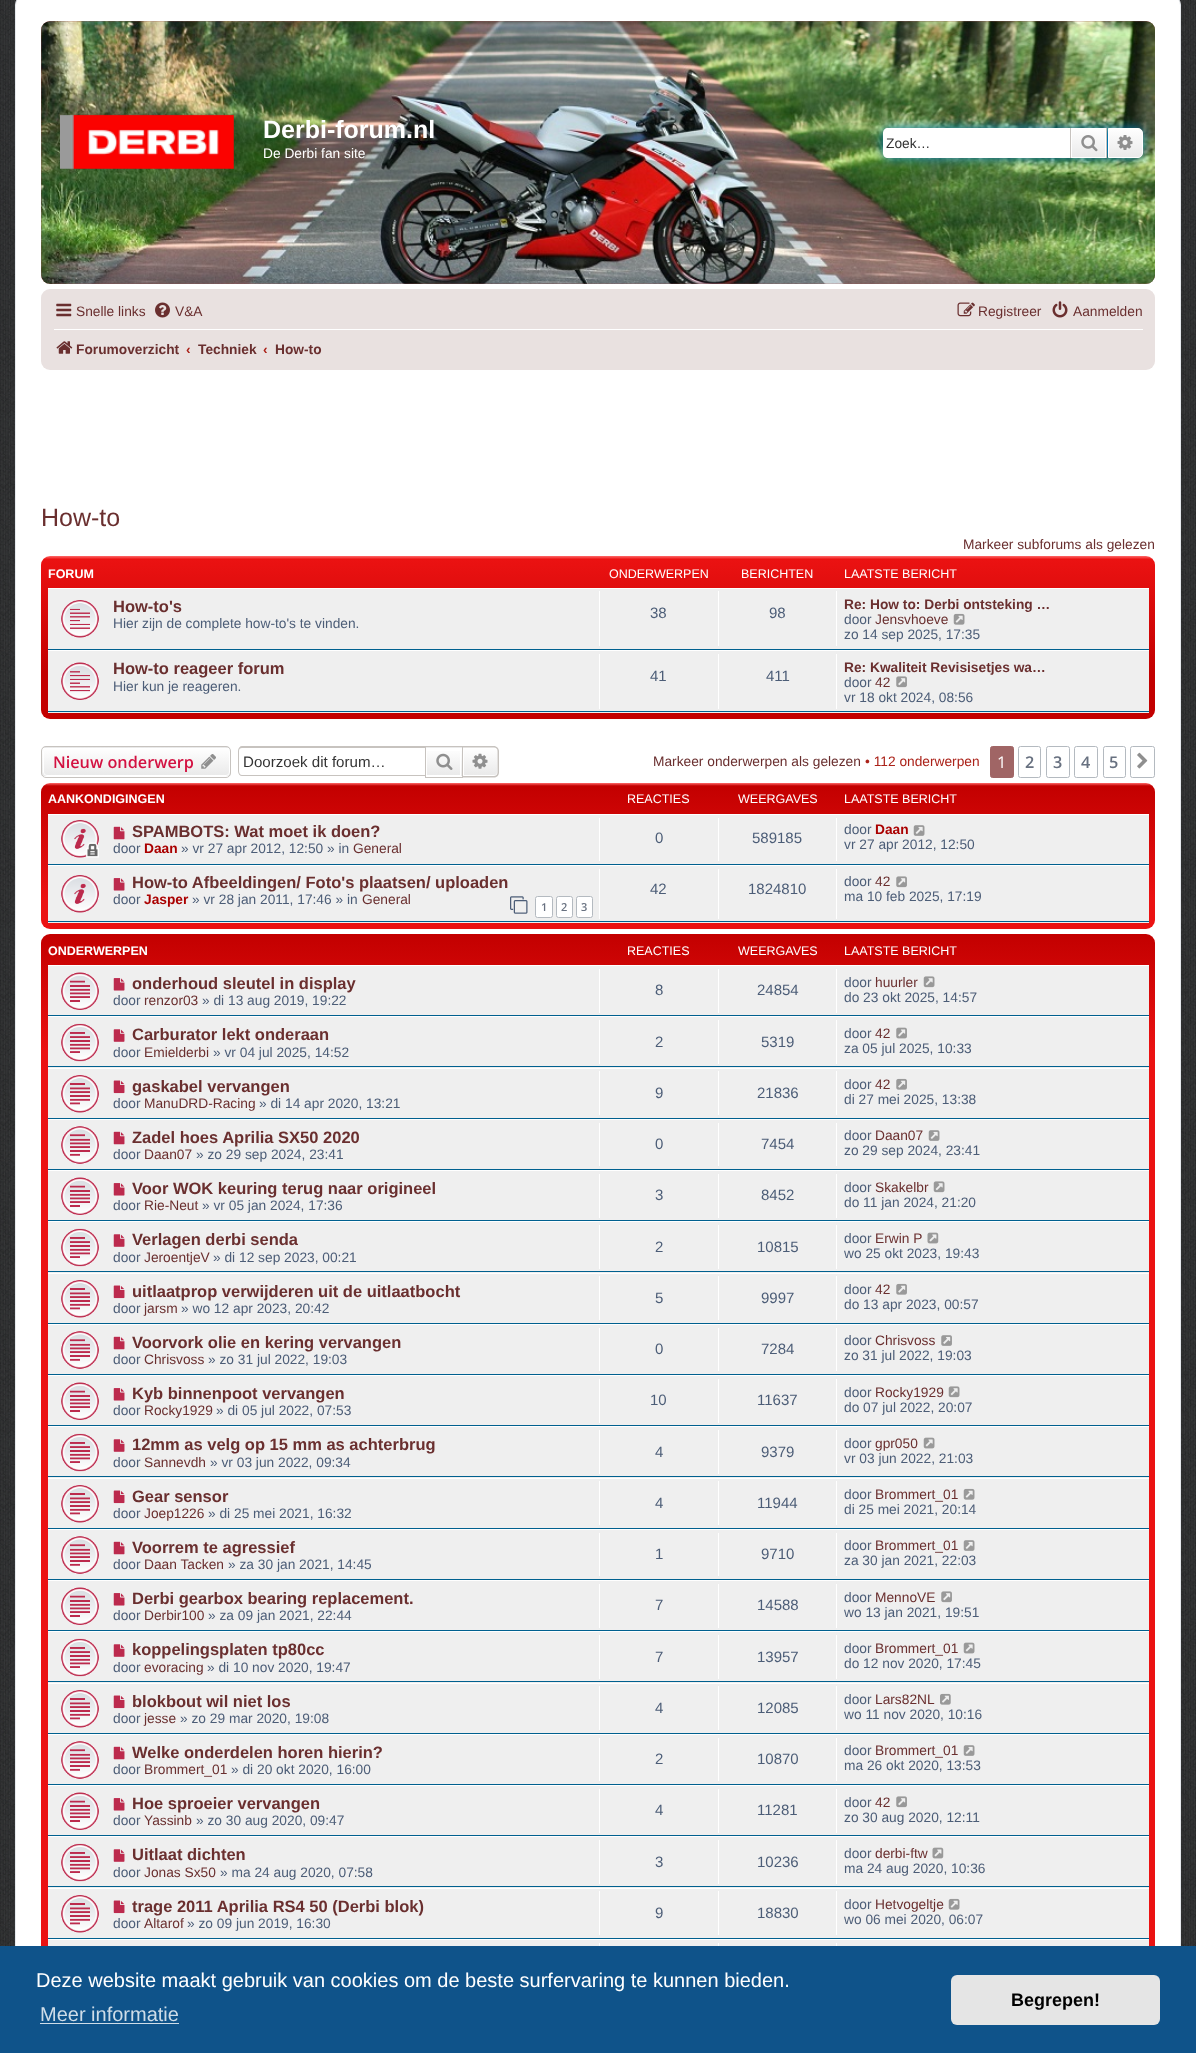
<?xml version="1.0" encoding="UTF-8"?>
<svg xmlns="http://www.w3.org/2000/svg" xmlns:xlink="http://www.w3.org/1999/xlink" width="1196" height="2053">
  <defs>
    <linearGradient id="g1" gradientUnits="userSpaceOnUse" x1="1089" y1="128" x2="1089" y2="158"><stop offset="0" stop-color="#ffffff" /><stop offset="1" stop-color="#e9e9e9" /></linearGradient>
    <linearGradient id="g2" gradientUnits="userSpaceOnUse" x1="1125" y1="128" x2="1125" y2="158"><stop offset="0" stop-color="#ffffff" /><stop offset="1" stop-color="#e9e9e9" /></linearGradient>
    <linearGradient id="g3" gradientUnits="userSpaceOnUse" x1="598" y1="556" x2="598" y2="719"><stop offset="0" stop-color="#ff6a6a" /><stop offset="0.02" stop-color="#eb1212" /><stop offset="0.71" stop-color="#c30000" /><stop offset="1" stop-color="#c30000" /></linearGradient>
    <clipPath id="clip1"><rect x="41" y="746" width="190" height="32" rx="5" /></clipPath>
    <linearGradient id="g4" gradientUnits="userSpaceOnUse" x1="136" y1="719" x2="136" y2="748"><stop offset="0" stop-color="#ffffff" /><stop offset="1" stop-color="#e9e9e9" /></linearGradient>
    <linearGradient id="g5" gradientUnits="userSpaceOnUse" x1="136" y1="748" x2="136" y2="776"><stop offset="0" stop-color="#ffffff" /><stop offset="1" stop-color="#e9e9e9" /></linearGradient>
    <linearGradient id="g6" gradientUnits="userSpaceOnUse" x1="444" y1="748" x2="444" y2="776"><stop offset="0" stop-color="#ffffff" /><stop offset="1" stop-color="#e9e9e9" /></linearGradient>
    <linearGradient id="g7" gradientUnits="userSpaceOnUse" x1="480" y1="748" x2="480" y2="776"><stop offset="0" stop-color="#ffffff" /><stop offset="1" stop-color="#e9e9e9" /></linearGradient>
    <linearGradient id="g8" gradientUnits="userSpaceOnUse" x1="598" y1="783" x2="598" y2="929"><stop offset="0" stop-color="#ff6a6a" /><stop offset="0.02" stop-color="#c30000" /><stop offset="0.79" stop-color="#eb1212" /><stop offset="1" stop-color="#eb1212" /></linearGradient>
    <linearGradient id="g9" gradientUnits="userSpaceOnUse" x1="598" y1="934" x2="598" y2="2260"><stop offset="0" stop-color="#ff6a6a" /><stop offset="0" stop-color="#c30000" /><stop offset="0.09" stop-color="#eb1212" /><stop offset="1" stop-color="#eb1212" /></linearGradient>
  </defs>
  <rect width="100%" height="100%" fill="#ffffff" />
  <image x="0" y="0" width="1196" height="1946" xlink:href="image1.png" />
  <rect x="15.5" y="-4.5" width="1165" height="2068" rx="9.5" fill="#ffffff" stroke="#e6e9ed" />
  <rect x="41" y="21" width="1114" height="263" rx="9" fill="#a15757" />
  <image x="41" y="21" width="1114" height="263" xlink:href="image2.png" />
  <image x="60" y="114" width="174" height="55" xlink:href="image3.png" />
  <rect x="883" y="128" width="260" height="30" rx="5" fill="#0075b0" filter="blur(6px)" />
  <path d="M 888 128 h 182 v 30 h -182 c -3 0 -5 -2 -5 -5 v -20 c 0 -3 2 -5 5 -5 z" fill="#ffffff" />
  <rect x="1072" y="129" width="33" height="28" fill="url(#g1)" />
  <rect x="1071.5" y="128.5" width="34" height="29" fill="none" stroke="#ffffff" />
  <rect x="1106" y="128" width="1" height="30" fill="#c7c3bf" />
  <rect x="1070" y="128" width="1" height="30" fill="#c7c3bf" />
  <image x="1081" y="135" width="17" height="17" xlink:href="image4.png" />
  <path d="M 1108.5 128.5 h 29.5 c 2.5 0 4.5 2 4.5 4.5 v 20 c 0 2.5 -2 4.5 -4.5 4.5 h -29.5 z" fill="url(#g2)" stroke="#ffffff" />
  <image x="1117" y="135" width="16" height="15" xlink:href="image5.png" />
  <rect x="41" y="289" width="1114" height="81" rx="9" fill="#e9e1e0" />
  <image x="56" y="303" width="16" height="14" xlink:href="image6.png" />
  <image x="155" y="302" width="15" height="16" xlink:href="image7.png" />
  <image x="957" y="302" width="18" height="15" xlink:href="image8.png" />
  <image x="1052" y="301" width="16" height="17" xlink:href="image9.png" />
  <rect x="54" y="329" width="1089" height="1" fill="#ffffff" />
  <image x="56" y="341" width="17" height="13" xlink:href="image10.png" />
  <rect x="41" y="556" width="1114" height="163" rx="9" fill="url(#g3)" />
  <rect x="48" y="589" width="1101" height="124" fill="#efefef" />
  <rect x="48" y="588" width="1101" height="1" fill="#ffffff" />
  <rect x="48" y="649" width="1101" height="1" fill="#00608f" />
  <image x="61" y="600" width="38" height="38" xlink:href="image11.png" />
  <rect x="599" y="591" width="1" height="55" fill="#ffffff" />
  <rect x="718" y="591" width="1" height="55" fill="#ffffff" />
  <rect x="836" y="591" width="1" height="55" fill="#ffffff" />
  <image x="953" y="613" width="12" height="12" xlink:href="image12.png" />
  <rect x="48" y="650" width="1101" height="1" fill="#ffffff" />
  <rect x="48" y="711" width="1101" height="1" fill="#00608f" />
  <image x="61" y="662" width="38" height="38" xlink:href="image13.png" />
  <rect x="599" y="654" width="1" height="55" fill="#ffffff" />
  <rect x="718" y="654" width="1" height="55" fill="#ffffff" />
  <rect x="836" y="654" width="1" height="55" fill="#ffffff" />
  <image x="896" y="676" width="11" height="12" xlink:href="image14.png" />
  <g clip-path="url(#clip1)">
    <rect x="41" y="746" width="190" height="2" fill="url(#g4)" />
    <rect x="41" y="748" width="190" height="28" fill="url(#g5)" />
  </g>
  <rect x="43.5" y="748.5" width="186" height="27" rx="3.5" fill="none" stroke="#ffffff" />
  <rect x="41.5" y="746.5" width="189" height="31" rx="4.5" fill="none" stroke="#c7c3bf" />
  <image x="201" y="754" width="15" height="15" xlink:href="image15.png" />
  <path d="M 242 746 h 183 v 30 h -183 c -2 0 -4 -2 -4 -5 v -20 c 0 -3 2 -5 4 -5 z m 0 2 h 183 v 27 h -183 c -2 0 -3 -2 -3 -4 v -20 c 0 -2 1 -3 3 -3 z" fill="#c7c3bf" fill-rule="evenodd" />
  <rect x="426" y="747" width="36" height="1" fill="#e9e9e9" />
  <rect x="427" y="751" width="35" height="25" fill="url(#g6)" />
  <rect x="426.5" y="748.5" width="34" height="27" fill="none" stroke="#ffffff" />
  <rect x="425.5" y="746.5" width="37" height="31" fill="none" stroke="#c7c3bf" />
  <image x="436" y="753" width="17" height="17" xlink:href="image16.png" />
  <path d="M 463.5 748.5 h 30.5 c 2 0 3.5 1.5 3.5 3.5 v 20 c 0 2 -1.5 3.5 -3.5 3.5 h -30.5 z" fill="url(#g7)" stroke="#ffffff" />
  <path d="M 462.5 746 h 31.5 c 2.5 0 5 2.5 5 5 v 21.5 c 0 3 -2.5 5 -5 5 h -31.5 z m 0 1.5 h 31.5 c 2 0 3.5 1.5 3.5 3.5 v 21.5 c 0 2 -1.5 3.5 -3.5 3.5 h -31.5 z" fill="#c7c3bf" fill-rule="evenodd" />
  <image x="472" y="753" width="16" height="16" xlink:href="image17.png" />
  <rect x="990.5" y="746.5" width="23" height="31" rx="2" fill="#a06565" stroke="#a06565" />
  <rect x="1018.5" y="746.5" width="22" height="31" rx="2" fill="none" stroke="#b4bac0" />
  <rect x="1046.5" y="746.5" width="23" height="31" rx="2" fill="none" stroke="#b4bac0" />
  <rect x="1074.5" y="746.5" width="23" height="31" rx="2" fill="none" stroke="#b4bac0" />
  <rect x="1103.5" y="746.5" width="22" height="31" rx="2" fill="none" stroke="#b4bac0" />
  <rect x="1130.5" y="746.5" width="24" height="31" rx="2" fill="none" stroke="#b4bac0" />
  <image x="1137" y="752" width="11" height="17" xlink:href="image18.png" />
  <rect x="41" y="783" width="1114" height="146" rx="9" fill="url(#g8)" />
  <rect x="48" y="815" width="1101" height="49" fill="#efefef" />
  <rect x="48" y="814" width="1101" height="1" fill="#ffffff" />
  <rect x="48" y="864" width="1101" height="1" fill="#00608f" />
  <image x="61" y="820" width="38" height="38" xlink:href="image19.png" />
  <image x="113" y="826" width="12" height="14" xlink:href="image20.png" />
  <rect x="599" y="818" width="1" height="43" fill="#ffffff" />
  <rect x="718" y="818" width="1" height="43" fill="#ffffff" />
  <rect x="836" y="818" width="1" height="43" fill="#ffffff" />
  <image x="913" y="825" width="12" height="11" xlink:href="image21.png" />
  <rect x="48" y="866" width="1101" height="57" fill="#efefef" />
  <rect x="48" y="865" width="1101" height="1" fill="#ffffff" />
  <rect x="48" y="921" width="1101" height="1" fill="#00608f" />
  <image x="61" y="875" width="38" height="38" xlink:href="image22.png" />
  <image x="113" y="878" width="12" height="13" xlink:href="image23.png" />
  <image x="510" y="896" width="18" height="18" xlink:href="image24.png" />
  <rect x="535.5" y="896.5" width="17" height="21" rx="2" fill="#ffffff" stroke="#b4bac0" />
  <rect x="556.5" y="896.5" width="16" height="21" rx="2" fill="#ffffff" stroke="#b4bac0" />
  <rect x="576.5" y="896.5" width="16" height="21" rx="2" fill="#ffffff" stroke="#b4bac0" />
  <rect x="599" y="869" width="1" height="50" fill="#ffffff" />
  <rect x="718" y="869" width="1" height="50" fill="#ffffff" />
  <rect x="836" y="869" width="1" height="50" fill="#ffffff" />
  <image x="896" y="876" width="11" height="12" xlink:href="image14.png" />
  <rect x="41" y="934" width="1114" height="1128" rx="9" fill="url(#g9)" />
  <rect x="48" y="966" width="1101" height="49" fill="#efefef" />
  <rect x="48" y="965" width="1101" height="1" fill="#ffffff" />
  <rect x="48" y="1015" width="1101" height="1" fill="#00608f" />
  <image x="61" y="972" width="38" height="38" xlink:href="image25.png" />
  <image x="113" y="978" width="12" height="13" xlink:href="image23.png" />
  <rect x="599" y="969" width="1" height="44" fill="#ffffff" />
  <rect x="718" y="969" width="1" height="44" fill="#ffffff" />
  <rect x="836" y="969" width="1" height="44" fill="#ffffff" />
  <image x="923" y="976" width="12" height="12" xlink:href="image26.png" />
  <rect x="48" y="1017" width="1101" height="51" fill="#efefef" />
  <rect x="48" y="1016" width="1101" height="1" fill="#ffffff" />
  <rect x="48" y="1066" width="1101" height="1" fill="#00608f" />
  <image x="61" y="1023" width="38" height="39" xlink:href="image27.png" />
  <image x="113" y="1029" width="12" height="13" xlink:href="image28.png" />
  <rect x="599" y="1020" width="1" height="44" fill="#ffffff" />
  <rect x="718" y="1020" width="1" height="44" fill="#ffffff" />
  <rect x="836" y="1020" width="1" height="44" fill="#ffffff" />
  <image x="896" y="1027" width="11" height="12" xlink:href="image29.png" />
  <rect x="48" y="1069" width="1101" height="49" fill="#efefef" />
  <rect x="48" y="1068" width="1101" height="1" fill="#ffffff" />
  <rect x="48" y="1118" width="1101" height="1" fill="#00608f" />
  <image x="61" y="1075" width="38" height="38" xlink:href="image30.png" />
  <image x="113" y="1080" width="12" height="14" xlink:href="image31.png" />
  <rect x="599" y="1071" width="1" height="44" fill="#ffffff" />
  <rect x="718" y="1071" width="1" height="44" fill="#ffffff" />
  <rect x="836" y="1071" width="1" height="44" fill="#ffffff" />
  <image x="896" y="1078" width="11" height="12" xlink:href="image32.png" />
  <rect x="48" y="1120" width="1101" height="49" fill="#efefef" />
  <rect x="48" y="1119" width="1101" height="1" fill="#ffffff" />
  <rect x="48" y="1169" width="1101" height="1" fill="#00608f" />
  <image x="61" y="1126" width="38" height="38" xlink:href="image33.png" />
  <image x="113" y="1131" width="12" height="14" xlink:href="image20.png" />
  <rect x="599" y="1123" width="1" height="43" fill="#ffffff" />
  <rect x="718" y="1123" width="1" height="43" fill="#ffffff" />
  <rect x="836" y="1123" width="1" height="43" fill="#ffffff" />
  <image x="928" y="1130" width="12" height="11" xlink:href="image21.png" />
  <rect x="48" y="1171" width="1101" height="49" fill="#efefef" />
  <rect x="48" y="1170" width="1101" height="1" fill="#ffffff" />
  <rect x="48" y="1220" width="1101" height="1" fill="#00608f" />
  <image x="61" y="1177" width="38" height="38" xlink:href="image25.png" />
  <image x="113" y="1183" width="12" height="13" xlink:href="image23.png" />
  <rect x="599" y="1174" width="1" height="44" fill="#ffffff" />
  <rect x="718" y="1174" width="1" height="44" fill="#ffffff" />
  <rect x="836" y="1174" width="1" height="44" fill="#ffffff" />
  <image x="933" y="1181" width="12" height="12" xlink:href="image26.png" />
  <rect x="48" y="1222" width="1101" height="51" fill="#efefef" />
  <rect x="48" y="1221" width="1101" height="1" fill="#ffffff" />
  <rect x="48" y="1271" width="1101" height="1" fill="#00608f" />
  <image x="61" y="1228" width="38" height="39" xlink:href="image27.png" />
  <image x="113" y="1234" width="12" height="13" xlink:href="image28.png" />
  <rect x="599" y="1225" width="1" height="44" fill="#ffffff" />
  <rect x="718" y="1225" width="1" height="44" fill="#ffffff" />
  <rect x="836" y="1225" width="1" height="44" fill="#ffffff" />
  <image x="927" y="1232" width="12" height="12" xlink:href="image34.png" />
  <rect x="48" y="1274" width="1101" height="49" fill="#efefef" />
  <rect x="48" y="1273" width="1101" height="1" fill="#ffffff" />
  <rect x="48" y="1323" width="1101" height="1" fill="#00608f" />
  <image x="61" y="1280" width="38" height="38" xlink:href="image30.png" />
  <image x="113" y="1285" width="12" height="14" xlink:href="image31.png" />
  <rect x="599" y="1276" width="1" height="44" fill="#ffffff" />
  <rect x="718" y="1276" width="1" height="44" fill="#ffffff" />
  <rect x="836" y="1276" width="1" height="44" fill="#ffffff" />
  <image x="896" y="1283" width="11" height="12" xlink:href="image32.png" />
  <rect x="48" y="1325" width="1101" height="49" fill="#efefef" />
  <rect x="48" y="1324" width="1101" height="1" fill="#ffffff" />
  <rect x="48" y="1374" width="1101" height="1" fill="#00608f" />
  <image x="61" y="1331" width="38" height="38" xlink:href="image35.png" />
  <image x="113" y="1336" width="12" height="14" xlink:href="image20.png" />
  <rect x="599" y="1328" width="1" height="43" fill="#ffffff" />
  <rect x="718" y="1328" width="1" height="43" fill="#ffffff" />
  <rect x="836" y="1328" width="1" height="43" fill="#ffffff" />
  <image x="941" y="1335" width="11" height="11" xlink:href="image36.png" />
  <rect x="48" y="1376" width="1101" height="49" fill="#efefef" />
  <rect x="48" y="1375" width="1101" height="1" fill="#ffffff" />
  <rect x="48" y="1425" width="1101" height="1" fill="#00608f" />
  <image x="61" y="1382" width="38" height="38" xlink:href="image25.png" />
  <image x="113" y="1388" width="12" height="13" xlink:href="image23.png" />
  <rect x="599" y="1379" width="1" height="44" fill="#ffffff" />
  <rect x="718" y="1379" width="1" height="44" fill="#ffffff" />
  <rect x="836" y="1379" width="1" height="44" fill="#ffffff" />
  <image x="948" y="1386" width="12" height="12" xlink:href="image26.png" />
  <rect x="48" y="1427" width="1101" height="51" fill="#efefef" />
  <rect x="48" y="1426" width="1101" height="1" fill="#ffffff" />
  <rect x="48" y="1476" width="1101" height="1" fill="#00608f" />
  <image x="61" y="1433" width="38" height="39" xlink:href="image27.png" />
  <image x="113" y="1439" width="12" height="13" xlink:href="image28.png" />
  <rect x="599" y="1430" width="1" height="44" fill="#ffffff" />
  <rect x="718" y="1430" width="1" height="44" fill="#ffffff" />
  <rect x="836" y="1430" width="1" height="44" fill="#ffffff" />
  <image x="923" y="1437" width="12" height="12" xlink:href="image37.png" />
  <rect x="48" y="1479" width="1101" height="49" fill="#efefef" />
  <rect x="48" y="1478" width="1101" height="1" fill="#ffffff" />
  <rect x="48" y="1528" width="1101" height="1" fill="#00608f" />
  <image x="61" y="1485" width="38" height="38" xlink:href="image30.png" />
  <image x="113" y="1490" width="12" height="14" xlink:href="image31.png" />
  <rect x="599" y="1481" width="1" height="44" fill="#ffffff" />
  <rect x="718" y="1481" width="1" height="44" fill="#ffffff" />
  <rect x="836" y="1481" width="1" height="44" fill="#ffffff" />
  <image x="963" y="1488" width="12" height="12" xlink:href="image12.png" />
  <rect x="48" y="1530" width="1101" height="49" fill="#efefef" />
  <rect x="48" y="1529" width="1101" height="1" fill="#ffffff" />
  <rect x="48" y="1579" width="1101" height="1" fill="#00608f" />
  <image x="61" y="1536" width="38" height="38" xlink:href="image38.png" />
  <image x="113" y="1541" width="12" height="14" xlink:href="image20.png" />
  <rect x="599" y="1533" width="1" height="43" fill="#ffffff" />
  <rect x="718" y="1533" width="1" height="43" fill="#ffffff" />
  <rect x="836" y="1533" width="1" height="43" fill="#ffffff" />
  <image x="963" y="1540" width="12" height="11" xlink:href="image21.png" />
  <rect x="48" y="1581" width="1101" height="49" fill="#efefef" />
  <rect x="48" y="1580" width="1101" height="1" fill="#ffffff" />
  <rect x="48" y="1630" width="1101" height="1" fill="#00608f" />
  <image x="61" y="1587" width="38" height="38" xlink:href="image25.png" />
  <image x="113" y="1593" width="12" height="13" xlink:href="image23.png" />
  <rect x="599" y="1584" width="1" height="44" fill="#ffffff" />
  <rect x="718" y="1584" width="1" height="44" fill="#ffffff" />
  <rect x="836" y="1584" width="1" height="44" fill="#ffffff" />
  <image x="941" y="1591" width="11" height="12" xlink:href="image14.png" />
  <rect x="48" y="1632" width="1101" height="51" fill="#efefef" />
  <rect x="48" y="1631" width="1101" height="1" fill="#ffffff" />
  <rect x="48" y="1681" width="1101" height="1" fill="#00608f" />
  <image x="61" y="1638" width="38" height="39" xlink:href="image27.png" />
  <image x="113" y="1644" width="12" height="13" xlink:href="image28.png" />
  <rect x="599" y="1635" width="1" height="44" fill="#ffffff" />
  <rect x="718" y="1635" width="1" height="44" fill="#ffffff" />
  <rect x="836" y="1635" width="1" height="44" fill="#ffffff" />
  <image x="963" y="1642" width="12" height="12" xlink:href="image37.png" />
  <rect x="48" y="1684" width="1101" height="49" fill="#efefef" />
  <rect x="48" y="1683" width="1101" height="1" fill="#ffffff" />
  <rect x="48" y="1733" width="1101" height="1" fill="#00608f" />
  <image x="61" y="1690" width="38" height="38" xlink:href="image30.png" />
  <image x="113" y="1695" width="12" height="14" xlink:href="image31.png" />
  <rect x="599" y="1686" width="1" height="44" fill="#ffffff" />
  <rect x="718" y="1686" width="1" height="44" fill="#ffffff" />
  <rect x="836" y="1686" width="1" height="44" fill="#ffffff" />
  <image x="940" y="1693" width="11" height="12" xlink:href="image39.png" />
  <rect x="48" y="1735" width="1101" height="49" fill="#efefef" />
  <rect x="48" y="1734" width="1101" height="1" fill="#ffffff" />
  <rect x="48" y="1784" width="1101" height="1" fill="#00608f" />
  <image x="61" y="1741" width="38" height="38" xlink:href="image35.png" />
  <image x="113" y="1746" width="12" height="14" xlink:href="image20.png" />
  <rect x="599" y="1738" width="1" height="43" fill="#ffffff" />
  <rect x="718" y="1738" width="1" height="43" fill="#ffffff" />
  <rect x="836" y="1738" width="1" height="43" fill="#ffffff" />
  <image x="963" y="1745" width="12" height="11" xlink:href="image21.png" />
  <rect x="48" y="1786" width="1101" height="49" fill="#efefef" />
  <rect x="48" y="1785" width="1101" height="1" fill="#ffffff" />
  <rect x="48" y="1835" width="1101" height="1" fill="#00608f" />
  <image x="61" y="1792" width="38" height="38" xlink:href="image25.png" />
  <image x="113" y="1798" width="12" height="13" xlink:href="image23.png" />
  <rect x="599" y="1789" width="1" height="44" fill="#ffffff" />
  <rect x="718" y="1789" width="1" height="44" fill="#ffffff" />
  <rect x="836" y="1789" width="1" height="44" fill="#ffffff" />
  <image x="896" y="1796" width="11" height="12" xlink:href="image14.png" />
  <rect x="48" y="1837" width="1101" height="51" fill="#efefef" />
  <rect x="48" y="1836" width="1101" height="1" fill="#ffffff" />
  <rect x="48" y="1886" width="1101" height="1" fill="#00608f" />
  <image x="61" y="1843" width="38" height="39" xlink:href="image27.png" />
  <image x="113" y="1849" width="12" height="13" xlink:href="image28.png" />
  <rect x="599" y="1840" width="1" height="44" fill="#ffffff" />
  <rect x="718" y="1840" width="1" height="44" fill="#ffffff" />
  <rect x="836" y="1840" width="1" height="44" fill="#ffffff" />
  <image x="932" y="1847" width="12" height="12" xlink:href="image34.png" />
  <rect x="48" y="1889" width="1101" height="49" fill="#efefef" />
  <rect x="48" y="1888" width="1101" height="1" fill="#ffffff" />
  <rect x="48" y="1938" width="1101" height="1" fill="#00608f" />
  <image x="61" y="1895" width="38" height="38" xlink:href="image30.png" />
  <image x="113" y="1900" width="12" height="14" xlink:href="image31.png" />
  <rect x="599" y="1891" width="1" height="44" fill="#ffffff" />
  <rect x="718" y="1891" width="1" height="44" fill="#ffffff" />
  <rect x="836" y="1891" width="1" height="44" fill="#ffffff" />
  <image x="948" y="1898" width="12" height="12" xlink:href="image12.png" />
  <rect x="48" y="1940" width="1101" height="6" fill="#efefef" />
  <rect x="48" y="1939" width="1101" height="1" fill="#ffffff" />
  <rect x="599" y="1943" width="1" height="3" fill="#ffffff" />
  <rect x="718" y="1943" width="1" height="3" fill="#ffffff" />
  <rect x="836" y="1943" width="1" height="3" fill="#ffffff" />
  <rect y="1946" width="1196" height="107" fill="#0f538a" />
  <rect x="40" y="2023" width="139" height="1" fill="#cfdde8" />
  <rect x="951" y="1975" width="209" height="50" rx="6" fill="#e5e5e5" />
  <text x="263" y="138" style="font-family: Liberation Sans; font-size: 25px; font-weight: bold; fill: #ffffff">Derbi-forum.nl</text>
  <text x="263" y="158" style="font-family: Liberation Sans; font-size: 13.75px; fill: #ffffff">De Derbi fan site</text>
  <text x="886" y="148" style="font-family: Liberation Sans; font-size: 13.75px; fill: #333333">Zoek…</text>
  <text x="76" y="316" style="font-family: Liberation Sans; font-size: 13.75px; fill: #6a2f2f">Snelle links</text>
  <text x="175" y="316" style="font-family: Liberation Sans; font-size: 13.75px; fill: #6a2f2f">V&amp;A</text>
  <text x="978" y="316" style="font-family: Liberation Sans; font-size: 13.75px; fill: #6a2f2f">Registreer</text>
  <text x="1073" y="316" style="font-family: Liberation Sans; font-size: 13.75px; fill: #6a2f2f">Aanmelden</text>
  <text x="76" y="354" style="font-family: Liberation Sans; font-size: 13.75px; font-weight: bold; fill: #6a2f2f">Forumoverzicht</text>
  <text x="186" y="354" style="font-family: Liberation Sans; font-size: 13.75px; font-weight: bold; fill: #ab2219">‹</text>
  <text x="198" y="354" style="font-family: Liberation Sans; font-size: 13.75px; font-weight: bold; fill: #6a2f2f">Techniek</text>
  <text x="263" y="354" style="font-family: Liberation Sans; font-size: 13.75px; font-weight: bold; fill: #ab2219">‹</text>
  <text x="275" y="354" style="font-family: Liberation Sans; font-size: 13.75px; font-weight: bold; fill: #6a2f2f">How-to</text>
  <text x="41" y="526" style="font-family: Liberation Sans; font-size: 25px; fill: #6a2f2f">How-to</text>
  <text x="963" y="549" style="font-family: Liberation Sans; font-size: 13.75px; fill: #6a2f2f">Markeer subforums als gelezen</text>
  <text x="48" y="578" style="font-family: Liberation Sans; font-size: 12.5px; font-weight: bold; fill: #ffffff">FORUM</text>
  <text x="609" y="578" style="font-family: Liberation Sans; font-size: 12.5px; fill: #ffffff">ONDERWERPEN</text>
  <text x="741" y="578" style="font-family: Liberation Sans; font-size: 12.5px; fill: #ffffff">BERICHTEN</text>
  <text x="844" y="578" style="font-family: Liberation Sans; font-size: 12.5px; fill: #ffffff">LAATSTE BERICHT</text>
  <text x="113" y="612" style="font-family: Liberation Sans; font-size: 16.5px; font-weight: bold; fill: #6a2f2f">How-to's</text>
  <text x="113" y="628" style="font-family: Liberation Sans; font-size: 13.75px; fill: #4c5d77">Hier zijn de complete how-to's te vinden.</text>
  <text x="650" y="618" style="font-family: Liberation Sans; font-size: 15px; fill: #4c5d77">38</text>
  <text x="769" y="618" style="font-family: Liberation Sans; font-size: 15px; fill: #4c5d77">98</text>
  <text x="844" y="609" style="font-family: Liberation Sans; font-size: 13.75px; font-weight: bold; fill: #6a2f2f">Re: How to: Derbi ontsteking …</text>
  <text x="844" y="624" style="font-family: Liberation Sans; font-size: 13.75px; fill: #4c5d77">door</text>
  <text x="875" y="624" style="font-family: Liberation Sans; font-size: 13.75px; fill: #6a2f2f">Jensvhoeve</text>
  <text x="844" y="639" style="font-family: Liberation Sans; font-size: 13.75px; fill: #4c5d77">zo 14 sep 2025, 17:35</text>
  <text x="113" y="674" style="font-family: Liberation Sans; font-size: 16.5px; font-weight: bold; fill: #6a2f2f">How-to reageer forum</text>
  <text x="113" y="691" style="font-family: Liberation Sans; font-size: 13.75px; fill: #4c5d77">Hier kun je reageren.</text>
  <text x="650" y="681" style="font-family: Liberation Sans; font-size: 15px; fill: #4c5d77">41</text>
  <text x="766" y="681" style="font-family: Liberation Sans; font-size: 15px; fill: #4c5d77">411</text>
  <text x="844" y="672" style="font-family: Liberation Sans; font-size: 13.75px; font-weight: bold; fill: #6a2f2f">Re: Kwaliteit Revisisetjes wa…</text>
  <text x="844" y="687" style="font-family: Liberation Sans; font-size: 13.75px; fill: #4c5d77">door</text>
  <text x="875" y="687" style="font-family: Liberation Sans; font-size: 13.75px; fill: #6a2f2f">42</text>
  <text x="844" y="702" style="font-family: Liberation Sans; font-size: 13.75px; fill: #4c5d77">vr 18 okt 2024, 08:56</text>
  <text x="53" y="768" style="font-family: Open Sans; font-size: 16.25px; font-weight: 600; fill: #d31141">Nieuw onderwerp</text>
  <text x="243" y="767" style="font-family: Liberation Sans; font-size: 15.1px; fill: #333333">Doorzoek dit forum…</text>
  <text x="653" y="766" style="font-family: Liberation Sans; font-size: 13.75px; fill: #6a2f2f">Markeer onderwerpen als gelezen</text>
  <text x="865" y="766" style="font-family: Liberation Sans; font-size: 13.75px; fill: #ab2219">• 112 onderwerpen</text>
  <text x="997" y="768" style="font-family: Open Sans; font-size: 16.25px; fill: #ffffff">1</text>
  <text x="1025" y="768" style="font-family: Open Sans; font-size: 16.25px; font-weight: 600; fill: #687180">2</text>
  <text x="1053" y="768" style="font-family: Open Sans; font-size: 16.25px; font-weight: 600; fill: #687180">3</text>
  <text x="1081" y="768" style="font-family: Open Sans; font-size: 16.25px; font-weight: 600; fill: #687180">4</text>
  <text x="1109" y="768" style="font-family: Open Sans; font-size: 16.25px; font-weight: 600; fill: #687180">5</text>
  <text x="48" y="803" style="font-family: Liberation Sans; font-size: 12.5px; font-weight: bold; fill: #ffffff">AANKONDIGINGEN</text>
  <text x="627" y="803" style="font-family: Liberation Sans; font-size: 12.5px; fill: #ffffff">REACTIES</text>
  <text x="738" y="803" style="font-family: Liberation Sans; font-size: 12.5px; fill: #ffffff">WEERGAVES</text>
  <text x="844" y="803" style="font-family: Liberation Sans; font-size: 12.5px; fill: #ffffff">LAATSTE BERICHT</text>
  <text x="132" y="837" style="font-family: Liberation Sans; font-size: 16.5px; font-weight: bold; fill: #6a2f2f">SPAMBOTS: Wat moet ik doen?</text>
  <text x="113" y="853" style="font-family: Liberation Sans; font-size: 13.75px; fill: #4c5d77">door</text>
  <text x="144" y="853" style="font-family: Liberation Sans; font-size: 13.75px; font-weight: bold; fill: #aa0000">Daan</text>
  <text x="181" y="853" style="font-family: Liberation Sans; font-size: 13.75px; fill: #4c5d77">» vr 27 apr 2012, 12:50 » in</text>
  <text x="353" y="853" style="font-family: Liberation Sans; font-size: 13.75px; fill: #6a2f2f">General</text>
  <text x="655" y="843" style="font-family: Liberation Sans; font-size: 15px; fill: #4c5d77">0</text>
  <text x="752" y="843" style="font-family: Liberation Sans; font-size: 15px; fill: #4c5d77">589185</text>
  <text x="844" y="834" style="font-family: Liberation Sans; font-size: 13.75px; fill: #4c5d77">door</text>
  <text x="875" y="834" style="font-family: Liberation Sans; font-size: 13.75px; font-weight: bold; fill: #aa0000">Daan</text>
  <text x="844" y="849" style="font-family: Liberation Sans; font-size: 13.75px; fill: #4c5d77">vr 27 apr 2012, 12:50</text>
  <text x="132" y="888" style="font-family: Liberation Sans; font-size: 16.5px; font-weight: bold; fill: #6a2f2f">How-to Afbeeldingen/ Foto's plaatsen/ uploaden</text>
  <text x="113" y="904" style="font-family: Liberation Sans; font-size: 13.75px; fill: #4c5d77">door</text>
  <text x="144" y="904" style="font-family: Liberation Sans; font-size: 13.75px; font-weight: bold; fill: #aa0000">Jasper</text>
  <text x="192" y="904" style="font-family: Liberation Sans; font-size: 13.75px; fill: #4c5d77">» vr 28 jan 2011, 17:46 » in</text>
  <text x="362" y="904" style="font-family: Liberation Sans; font-size: 13.75px; fill: #6a2f2f">General</text>
  <text x="541" y="911" style="font-family: Open Sans; font-size: 11px; font-weight: 600; fill: #687180">1</text>
  <text x="561" y="911" style="font-family: Open Sans; font-size: 11px; font-weight: 600; fill: #687180">2</text>
  <text x="581" y="911" style="font-family: Open Sans; font-size: 11px; font-weight: 600; fill: #687180">3</text>
  <text x="650" y="894" style="font-family: Liberation Sans; font-size: 15px; fill: #4c5d77">42</text>
  <text x="748" y="894" style="font-family: Liberation Sans; font-size: 15px; fill: #4c5d77">1824810</text>
  <text x="844" y="886" style="font-family: Liberation Sans; font-size: 13.75px; fill: #4c5d77">door</text>
  <text x="875" y="886" style="font-family: Liberation Sans; font-size: 13.75px; fill: #6a2f2f">42</text>
  <text x="844" y="901" style="font-family: Liberation Sans; font-size: 13.75px; fill: #4c5d77">ma 10 feb 2025, 17:19</text>
  <text x="48" y="955" style="font-family: Liberation Sans; font-size: 12.5px; font-weight: bold; fill: #ffffff">ONDERWERPEN</text>
  <text x="627" y="955" style="font-family: Liberation Sans; font-size: 12.5px; fill: #ffffff">REACTIES</text>
  <text x="738" y="955" style="font-family: Liberation Sans; font-size: 12.5px; fill: #ffffff">WEERGAVES</text>
  <text x="844" y="955" style="font-family: Liberation Sans; font-size: 12.5px; fill: #ffffff">LAATSTE BERICHT</text>
  <text x="132" y="989" style="font-family: Liberation Sans; font-size: 16.5px; font-weight: bold; fill: #6a2f2f">onderhoud sleutel in display</text>
  <text x="113" y="1005" style="font-family: Liberation Sans; font-size: 13.75px; fill: #4c5d77">door</text>
  <text x="144" y="1005" style="font-family: Liberation Sans; font-size: 13.75px; fill: #6a2f2f">renzor03</text>
  <text x="202" y="1005" style="font-family: Liberation Sans; font-size: 13.75px; fill: #4c5d77">» di 13 aug 2019, 19:22</text>
  <text x="655" y="995" style="font-family: Liberation Sans; font-size: 15px; fill: #4c5d77">8</text>
  <text x="757" y="995" style="font-family: Liberation Sans; font-size: 15px; fill: #4c5d77">24854</text>
  <text x="844" y="987" style="font-family: Liberation Sans; font-size: 13.75px; fill: #4c5d77">door</text>
  <text x="875" y="987" style="font-family: Liberation Sans; font-size: 13.75px; fill: #6a2f2f">huurler</text>
  <text x="844" y="1002" style="font-family: Liberation Sans; font-size: 13.75px; fill: #4c5d77">do 23 okt 2025, 14:57</text>
  <text x="132" y="1040" style="font-family: Liberation Sans; font-size: 16.5px; font-weight: bold; fill: #6a2f2f">Carburator lekt onderaan</text>
  <text x="113" y="1057" style="font-family: Liberation Sans; font-size: 13.75px; fill: #4c5d77">door</text>
  <text x="144" y="1057" style="font-family: Liberation Sans; font-size: 13.75px; fill: #6a2f2f">Emielderbi</text>
  <text x="213" y="1057" style="font-family: Liberation Sans; font-size: 13.75px; fill: #4c5d77">» vr 04 jul 2025, 14:52</text>
  <text x="655" y="1047" style="font-family: Liberation Sans; font-size: 15px; fill: #4c5d77">2</text>
  <text x="761" y="1047" style="font-family: Liberation Sans; font-size: 15px; fill: #4c5d77">5319</text>
  <text x="844" y="1038" style="font-family: Liberation Sans; font-size: 13.75px; fill: #4c5d77">door</text>
  <text x="875" y="1038" style="font-family: Liberation Sans; font-size: 13.75px; fill: #6a2f2f">42</text>
  <text x="844" y="1053" style="font-family: Liberation Sans; font-size: 13.75px; fill: #4c5d77">za 05 jul 2025, 10:33</text>
  <text x="132" y="1092" style="font-family: Liberation Sans; font-size: 16.5px; font-weight: bold; fill: #6a2f2f">gaskabel vervangen</text>
  <text x="113" y="1108" style="font-family: Liberation Sans; font-size: 13.75px; fill: #4c5d77">door</text>
  <text x="144" y="1108" style="font-family: Liberation Sans; font-size: 13.75px; fill: #6a2f2f">ManuDRD-Racing</text>
  <text x="259" y="1108" style="font-family: Liberation Sans; font-size: 13.75px; fill: #4c5d77">» di 14 apr 2020, 13:21</text>
  <text x="655" y="1098" style="font-family: Liberation Sans; font-size: 15px; fill: #4c5d77">9</text>
  <text x="757" y="1098" style="font-family: Liberation Sans; font-size: 15px; fill: #4c5d77">21836</text>
  <text x="844" y="1089" style="font-family: Liberation Sans; font-size: 13.75px; fill: #4c5d77">door</text>
  <text x="875" y="1089" style="font-family: Liberation Sans; font-size: 13.75px; fill: #6a2f2f">42</text>
  <text x="844" y="1104" style="font-family: Liberation Sans; font-size: 13.75px; fill: #4c5d77">di 27 mei 2025, 13:38</text>
  <text x="132" y="1143" style="font-family: Liberation Sans; font-size: 16.5px; font-weight: bold; fill: #6a2f2f">Zadel hoes Aprilia SX50 2020</text>
  <text x="113" y="1159" style="font-family: Liberation Sans; font-size: 13.75px; fill: #4c5d77">door</text>
  <text x="144" y="1159" style="font-family: Liberation Sans; font-size: 13.75px; fill: #6a2f2f">Daan07</text>
  <text x="196" y="1159" style="font-family: Liberation Sans; font-size: 13.75px; fill: #4c5d77">» zo 29 sep 2024, 23:41</text>
  <text x="655" y="1149" style="font-family: Liberation Sans; font-size: 15px; fill: #4c5d77">0</text>
  <text x="761" y="1149" style="font-family: Liberation Sans; font-size: 15px; fill: #4c5d77">7454</text>
  <text x="844" y="1140" style="font-family: Liberation Sans; font-size: 13.75px; fill: #4c5d77">door</text>
  <text x="875" y="1140" style="font-family: Liberation Sans; font-size: 13.75px; fill: #6a2f2f">Daan07</text>
  <text x="844" y="1155" style="font-family: Liberation Sans; font-size: 13.75px; fill: #4c5d77">zo 29 sep 2024, 23:41</text>
  <text x="132" y="1194" style="font-family: Liberation Sans; font-size: 16.5px; font-weight: bold; fill: #6a2f2f">Voor WOK keuring terug naar origineel</text>
  <text x="113" y="1210" style="font-family: Liberation Sans; font-size: 13.75px; fill: #4c5d77">door</text>
  <text x="144" y="1210" style="font-family: Liberation Sans; font-size: 13.75px; fill: #6a2f2f">Rie-Neut</text>
  <text x="202" y="1210" style="font-family: Liberation Sans; font-size: 13.75px; fill: #4c5d77">» vr 05 jan 2024, 17:36</text>
  <text x="655" y="1200" style="font-family: Liberation Sans; font-size: 15px; fill: #4c5d77">3</text>
  <text x="761" y="1200" style="font-family: Liberation Sans; font-size: 15px; fill: #4c5d77">8452</text>
  <text x="844" y="1192" style="font-family: Liberation Sans; font-size: 13.75px; fill: #4c5d77">door</text>
  <text x="875" y="1192" style="font-family: Liberation Sans; font-size: 13.75px; fill: #6a2f2f">Skakelbr</text>
  <text x="844" y="1207" style="font-family: Liberation Sans; font-size: 13.75px; fill: #4c5d77">do 11 jan 2024, 21:20</text>
  <text x="132" y="1245" style="font-family: Liberation Sans; font-size: 16.5px; font-weight: bold; fill: #6a2f2f">Verlagen derbi senda</text>
  <text x="113" y="1262" style="font-family: Liberation Sans; font-size: 13.75px; fill: #4c5d77">door</text>
  <text x="144" y="1262" style="font-family: Liberation Sans; font-size: 13.75px; fill: #6a2f2f">JeroentjeV</text>
  <text x="213" y="1262" style="font-family: Liberation Sans; font-size: 13.75px; fill: #4c5d77">» di 12 sep 2023, 00:21</text>
  <text x="655" y="1252" style="font-family: Liberation Sans; font-size: 15px; fill: #4c5d77">2</text>
  <text x="757" y="1252" style="font-family: Liberation Sans; font-size: 15px; fill: #4c5d77">10815</text>
  <text x="844" y="1243" style="font-family: Liberation Sans; font-size: 13.75px; fill: #4c5d77">door</text>
  <text x="875" y="1243" style="font-family: Liberation Sans; font-size: 13.75px; fill: #6a2f2f">Erwin P</text>
  <text x="844" y="1258" style="font-family: Liberation Sans; font-size: 13.75px; fill: #4c5d77">wo 25 okt 2023, 19:43</text>
  <text x="132" y="1297" style="font-family: Liberation Sans; font-size: 16.5px; font-weight: bold; fill: #6a2f2f">uitlaatprop verwijderen uit de uitlaatbocht</text>
  <text x="113" y="1313" style="font-family: Liberation Sans; font-size: 13.75px; fill: #4c5d77">door</text>
  <text x="144" y="1313" style="font-family: Liberation Sans; font-size: 13.75px; fill: #6a2f2f">jarsm</text>
  <text x="181" y="1313" style="font-family: Liberation Sans; font-size: 13.75px; fill: #4c5d77">» wo 12 apr 2023, 20:42</text>
  <text x="655" y="1303" style="font-family: Liberation Sans; font-size: 15px; fill: #4c5d77">5</text>
  <text x="761" y="1303" style="font-family: Liberation Sans; font-size: 15px; fill: #4c5d77">9997</text>
  <text x="844" y="1294" style="font-family: Liberation Sans; font-size: 13.75px; fill: #4c5d77">door</text>
  <text x="875" y="1294" style="font-family: Liberation Sans; font-size: 13.75px; fill: #6a2f2f">42</text>
  <text x="844" y="1309" style="font-family: Liberation Sans; font-size: 13.75px; fill: #4c5d77">do 13 apr 2023, 00:57</text>
  <text x="132" y="1348" style="font-family: Liberation Sans; font-size: 16.5px; font-weight: bold; fill: #6a2f2f">Voorvork olie en kering vervangen</text>
  <text x="113" y="1364" style="font-family: Liberation Sans; font-size: 13.75px; fill: #4c5d77">door</text>
  <text x="144" y="1364" style="font-family: Liberation Sans; font-size: 13.75px; fill: #6a2f2f">Chrisvoss</text>
  <text x="208" y="1364" style="font-family: Liberation Sans; font-size: 13.75px; fill: #4c5d77">» zo 31 jul 2022, 19:03</text>
  <text x="655" y="1354" style="font-family: Liberation Sans; font-size: 15px; fill: #4c5d77">0</text>
  <text x="761" y="1354" style="font-family: Liberation Sans; font-size: 15px; fill: #4c5d77">7284</text>
  <text x="844" y="1345" style="font-family: Liberation Sans; font-size: 13.75px; fill: #4c5d77">door</text>
  <text x="875" y="1345" style="font-family: Liberation Sans; font-size: 13.75px; fill: #6a2f2f">Chrisvoss</text>
  <text x="844" y="1360" style="font-family: Liberation Sans; font-size: 13.75px; fill: #4c5d77">zo 31 jul 2022, 19:03</text>
  <text x="132" y="1399" style="font-family: Liberation Sans; font-size: 16.5px; font-weight: bold; fill: #6a2f2f">Kyb binnenpoot vervangen</text>
  <text x="113" y="1415" style="font-family: Liberation Sans; font-size: 13.75px; fill: #4c5d77">door</text>
  <text x="144" y="1415" style="font-family: Liberation Sans; font-size: 13.75px; fill: #6a2f2f">Rocky1929</text>
  <text x="216" y="1415" style="font-family: Liberation Sans; font-size: 13.75px; fill: #4c5d77">» di 05 jul 2022, 07:53</text>
  <text x="650" y="1405" style="font-family: Liberation Sans; font-size: 15px; fill: #4c5d77">10</text>
  <text x="757" y="1405" style="font-family: Liberation Sans; font-size: 15px; fill: #4c5d77">11637</text>
  <text x="844" y="1397" style="font-family: Liberation Sans; font-size: 13.75px; fill: #4c5d77">door</text>
  <text x="875" y="1397" style="font-family: Liberation Sans; font-size: 13.75px; fill: #6a2f2f">Rocky1929</text>
  <text x="844" y="1412" style="font-family: Liberation Sans; font-size: 13.75px; fill: #4c5d77">do 07 jul 2022, 20:07</text>
  <text x="132" y="1450" style="font-family: Liberation Sans; font-size: 16.5px; font-weight: bold; fill: #6a2f2f">12mm as velg op 15 mm as achterbrug</text>
  <text x="113" y="1467" style="font-family: Liberation Sans; font-size: 13.75px; fill: #4c5d77">door</text>
  <text x="144" y="1467" style="font-family: Liberation Sans; font-size: 13.75px; fill: #6a2f2f">Sannevdh</text>
  <text x="210" y="1467" style="font-family: Liberation Sans; font-size: 13.75px; fill: #4c5d77">» vr 03 jun 2022, 09:34</text>
  <text x="655" y="1457" style="font-family: Liberation Sans; font-size: 15px; fill: #4c5d77">4</text>
  <text x="761" y="1457" style="font-family: Liberation Sans; font-size: 15px; fill: #4c5d77">9379</text>
  <text x="844" y="1448" style="font-family: Liberation Sans; font-size: 13.75px; fill: #4c5d77">door</text>
  <text x="875" y="1448" style="font-family: Liberation Sans; font-size: 13.75px; fill: #6a2f2f">gpr050</text>
  <text x="844" y="1463" style="font-family: Liberation Sans; font-size: 13.75px; fill: #4c5d77">vr 03 jun 2022, 21:03</text>
  <text x="132" y="1502" style="font-family: Liberation Sans; font-size: 16.5px; font-weight: bold; fill: #6a2f2f">Gear sensor</text>
  <text x="113" y="1518" style="font-family: Liberation Sans; font-size: 13.75px; fill: #4c5d77">door</text>
  <text x="144" y="1518" style="font-family: Liberation Sans; font-size: 13.75px; fill: #6a2f2f">Joep1226</text>
  <text x="208" y="1518" style="font-family: Liberation Sans; font-size: 13.75px; fill: #4c5d77">» di 25 mei 2021, 16:32</text>
  <text x="655" y="1508" style="font-family: Liberation Sans; font-size: 15px; fill: #4c5d77">4</text>
  <text x="757" y="1508" style="font-family: Liberation Sans; font-size: 15px; fill: #4c5d77">11944</text>
  <text x="844" y="1499" style="font-family: Liberation Sans; font-size: 13.75px; fill: #4c5d77">door</text>
  <text x="875" y="1499" style="font-family: Liberation Sans; font-size: 13.75px; fill: #6a2f2f">Brommert_01</text>
  <text x="844" y="1514" style="font-family: Liberation Sans; font-size: 13.75px; fill: #4c5d77">di 25 mei 2021, 20:14</text>
  <text x="132" y="1553" style="font-family: Liberation Sans; font-size: 16.5px; font-weight: bold; fill: #6a2f2f">Voorrem te agressief</text>
  <text x="113" y="1569" style="font-family: Liberation Sans; font-size: 13.75px; fill: #4c5d77">door</text>
  <text x="144" y="1569" style="font-family: Liberation Sans; font-size: 13.75px; fill: #6a2f2f">Daan Tacken</text>
  <text x="228" y="1569" style="font-family: Liberation Sans; font-size: 13.75px; fill: #4c5d77">» za 30 jan 2021, 14:45</text>
  <text x="655" y="1559" style="font-family: Liberation Sans; font-size: 15px; fill: #4c5d77">1</text>
  <text x="761" y="1559" style="font-family: Liberation Sans; font-size: 15px; fill: #4c5d77">9710</text>
  <text x="844" y="1550" style="font-family: Liberation Sans; font-size: 13.75px; fill: #4c5d77">door</text>
  <text x="875" y="1550" style="font-family: Liberation Sans; font-size: 13.75px; fill: #6a2f2f">Brommert_01</text>
  <text x="844" y="1565" style="font-family: Liberation Sans; font-size: 13.75px; fill: #4c5d77">za 30 jan 2021, 22:03</text>
  <text x="132" y="1604" style="font-family: Liberation Sans; font-size: 16.5px; font-weight: bold; fill: #6a2f2f">Derbi gearbox bearing replacement.</text>
  <text x="113" y="1620" style="font-family: Liberation Sans; font-size: 13.75px; fill: #4c5d77">door</text>
  <text x="144" y="1620" style="font-family: Liberation Sans; font-size: 13.75px; fill: #6a2f2f">Derbir100</text>
  <text x="208" y="1620" style="font-family: Liberation Sans; font-size: 13.75px; fill: #4c5d77">» za 09 jan 2021, 22:44</text>
  <text x="655" y="1610" style="font-family: Liberation Sans; font-size: 15px; fill: #4c5d77">7</text>
  <text x="757" y="1610" style="font-family: Liberation Sans; font-size: 15px; fill: #4c5d77">14588</text>
  <text x="844" y="1602" style="font-family: Liberation Sans; font-size: 13.75px; fill: #4c5d77">door</text>
  <text x="875" y="1602" style="font-family: Liberation Sans; font-size: 13.75px; fill: #6a2f2f">MennoVE</text>
  <text x="844" y="1617" style="font-family: Liberation Sans; font-size: 13.75px; fill: #4c5d77">wo 13 jan 2021, 19:51</text>
  <text x="132" y="1655" style="font-family: Liberation Sans; font-size: 16.5px; font-weight: bold; fill: #6a2f2f">koppelingsplaten tp80cc</text>
  <text x="113" y="1672" style="font-family: Liberation Sans; font-size: 13.75px; fill: #4c5d77">door</text>
  <text x="144" y="1672" style="font-family: Liberation Sans; font-size: 13.75px; fill: #6a2f2f">evoracing</text>
  <text x="207" y="1672" style="font-family: Liberation Sans; font-size: 13.75px; fill: #4c5d77">» di 10 nov 2020, 19:47</text>
  <text x="655" y="1662" style="font-family: Liberation Sans; font-size: 15px; fill: #4c5d77">7</text>
  <text x="757" y="1662" style="font-family: Liberation Sans; font-size: 15px; fill: #4c5d77">13957</text>
  <text x="844" y="1653" style="font-family: Liberation Sans; font-size: 13.75px; fill: #4c5d77">door</text>
  <text x="875" y="1653" style="font-family: Liberation Sans; font-size: 13.75px; fill: #6a2f2f">Brommert_01</text>
  <text x="844" y="1668" style="font-family: Liberation Sans; font-size: 13.75px; fill: #4c5d77">do 12 nov 2020, 17:45</text>
  <text x="132" y="1707" style="font-family: Liberation Sans; font-size: 16.5px; font-weight: bold; fill: #6a2f2f">blokbout wil niet los</text>
  <text x="113" y="1723" style="font-family: Liberation Sans; font-size: 13.75px; fill: #4c5d77">door</text>
  <text x="144" y="1723" style="font-family: Liberation Sans; font-size: 13.75px; fill: #6a2f2f">jesse</text>
  <text x="180" y="1723" style="font-family: Liberation Sans; font-size: 13.75px; fill: #4c5d77">» zo 29 mar 2020, 19:08</text>
  <text x="655" y="1713" style="font-family: Liberation Sans; font-size: 15px; fill: #4c5d77">4</text>
  <text x="757" y="1713" style="font-family: Liberation Sans; font-size: 15px; fill: #4c5d77">12085</text>
  <text x="844" y="1704" style="font-family: Liberation Sans; font-size: 13.75px; fill: #4c5d77">door</text>
  <text x="875" y="1704" style="font-family: Liberation Sans; font-size: 13.75px; fill: #6a2f2f">Lars82NL</text>
  <text x="844" y="1719" style="font-family: Liberation Sans; font-size: 13.75px; fill: #4c5d77">wo 11 nov 2020, 10:16</text>
  <text x="132" y="1758" style="font-family: Liberation Sans; font-size: 16.5px; font-weight: bold; fill: #6a2f2f">Welke onderdelen horen hierin?</text>
  <text x="113" y="1774" style="font-family: Liberation Sans; font-size: 13.75px; fill: #4c5d77">door</text>
  <text x="144" y="1774" style="font-family: Liberation Sans; font-size: 13.75px; fill: #6a2f2f">Brommert_01</text>
  <text x="231" y="1774" style="font-family: Liberation Sans; font-size: 13.75px; fill: #4c5d77">» di 20 okt 2020, 16:00</text>
  <text x="655" y="1764" style="font-family: Liberation Sans; font-size: 15px; fill: #4c5d77">2</text>
  <text x="757" y="1764" style="font-family: Liberation Sans; font-size: 15px; fill: #4c5d77">10870</text>
  <text x="844" y="1755" style="font-family: Liberation Sans; font-size: 13.75px; fill: #4c5d77">door</text>
  <text x="875" y="1755" style="font-family: Liberation Sans; font-size: 13.75px; fill: #6a2f2f">Brommert_01</text>
  <text x="844" y="1770" style="font-family: Liberation Sans; font-size: 13.75px; fill: #4c5d77">ma 26 okt 2020, 13:53</text>
  <text x="132" y="1809" style="font-family: Liberation Sans; font-size: 16.5px; font-weight: bold; fill: #6a2f2f">Hoe sproeier vervangen</text>
  <text x="113" y="1825" style="font-family: Liberation Sans; font-size: 13.75px; fill: #4c5d77">door</text>
  <text x="144" y="1825" style="font-family: Liberation Sans; font-size: 13.75px; fill: #6a2f2f">Yassinb</text>
  <text x="196" y="1825" style="font-family: Liberation Sans; font-size: 13.75px; fill: #4c5d77">» zo 30 aug 2020, 09:47</text>
  <text x="655" y="1815" style="font-family: Liberation Sans; font-size: 15px; fill: #4c5d77">4</text>
  <text x="757" y="1815" style="font-family: Liberation Sans; font-size: 15px; fill: #4c5d77">11281</text>
  <text x="844" y="1807" style="font-family: Liberation Sans; font-size: 13.75px; fill: #4c5d77">door</text>
  <text x="875" y="1807" style="font-family: Liberation Sans; font-size: 13.75px; fill: #6a2f2f">42</text>
  <text x="844" y="1822" style="font-family: Liberation Sans; font-size: 13.75px; fill: #4c5d77">zo 30 aug 2020, 12:11</text>
  <text x="132" y="1860" style="font-family: Liberation Sans; font-size: 16.5px; font-weight: bold; fill: #6a2f2f">Uitlaat dichten</text>
  <text x="113" y="1877" style="font-family: Liberation Sans; font-size: 13.75px; fill: #4c5d77">door</text>
  <text x="144" y="1877" style="font-family: Liberation Sans; font-size: 13.75px; fill: #6a2f2f">Jonas Sx50</text>
  <text x="220" y="1877" style="font-family: Liberation Sans; font-size: 13.75px; fill: #4c5d77">» ma 24 aug 2020, 07:58</text>
  <text x="655" y="1867" style="font-family: Liberation Sans; font-size: 15px; fill: #4c5d77">3</text>
  <text x="757" y="1867" style="font-family: Liberation Sans; font-size: 15px; fill: #4c5d77">10236</text>
  <text x="844" y="1858" style="font-family: Liberation Sans; font-size: 13.75px; fill: #4c5d77">door</text>
  <text x="875" y="1858" style="font-family: Liberation Sans; font-size: 13.75px; fill: #6a2f2f">derbi-ftw</text>
  <text x="844" y="1873" style="font-family: Liberation Sans; font-size: 13.75px; fill: #4c5d77">ma 24 aug 2020, 10:36</text>
  <text x="132" y="1912" style="font-family: Liberation Sans; font-size: 16.5px; font-weight: bold; fill: #6a2f2f">trage 2011 Aprilia RS4 50 (Derbi blok)</text>
  <text x="113" y="1928" style="font-family: Liberation Sans; font-size: 13.75px; fill: #4c5d77">door</text>
  <text x="144" y="1928" style="font-family: Liberation Sans; font-size: 13.75px; fill: #6a2f2f">Altarof</text>
  <text x="187" y="1928" style="font-family: Liberation Sans; font-size: 13.75px; fill: #4c5d77">» zo 09 jun 2019, 16:30</text>
  <text x="655" y="1918" style="font-family: Liberation Sans; font-size: 15px; fill: #4c5d77">9</text>
  <text x="757" y="1918" style="font-family: Liberation Sans; font-size: 15px; fill: #4c5d77">18830</text>
  <text x="844" y="1909" style="font-family: Liberation Sans; font-size: 13.75px; fill: #4c5d77">door</text>
  <text x="875" y="1909" style="font-family: Liberation Sans; font-size: 13.75px; fill: #6a2f2f">Hetvogeltje</text>
  <text x="844" y="1924" style="font-family: Liberation Sans; font-size: 13.75px; fill: #4c5d77">wo 06 mei 2020, 06:07</text>
  <text x="36" y="1987" style="font-family: Liberation Sans; font-size: 20px; fill: #ffffff">Deze website maakt gebruik van cookies om de beste surfervaring te kunnen bieden.</text>
  <text x="40" y="2021" style="font-family: Liberation Sans; font-size: 20px; fill: #cfdde8">Meer informatie</text>
  <text x="1011" y="2006" style="font-family: Liberation Sans; font-size: 18px; font-weight: bold; fill: #000000">Begrepen!</text>
</svg>
